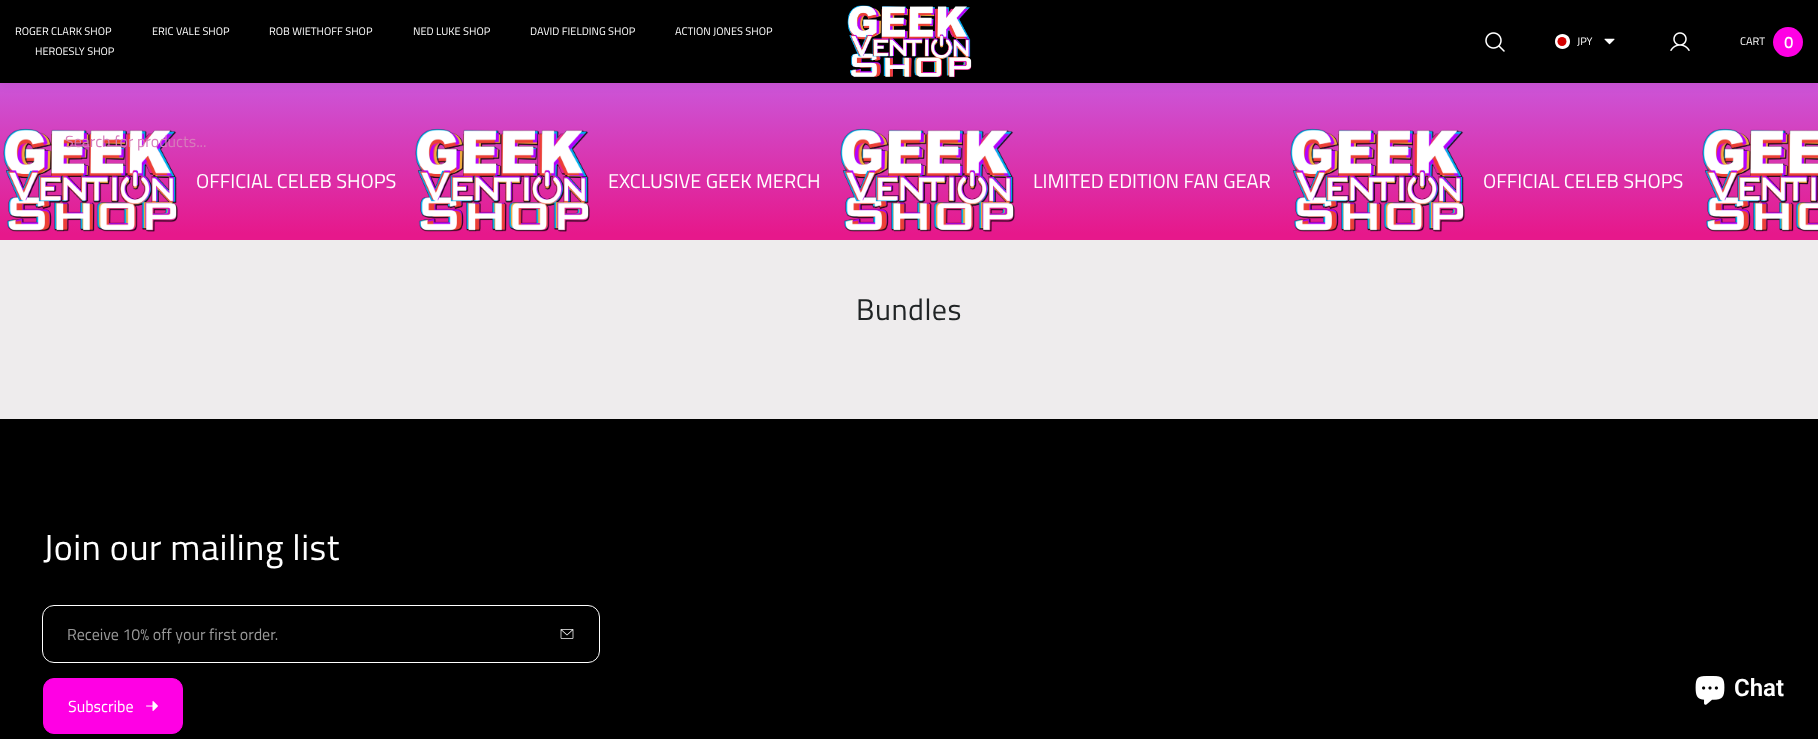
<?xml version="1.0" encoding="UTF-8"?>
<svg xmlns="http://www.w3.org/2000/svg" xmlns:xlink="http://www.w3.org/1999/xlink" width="1818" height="739">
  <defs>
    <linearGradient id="g1" gradientUnits="userSpaceOnUse" x1="909" y1="41" x2="909" y2="240"><stop offset="0" stop-color="#c466ee" /><stop offset="0.97" stop-color="#e6188b" /></linearGradient>
  </defs>
  <rect width="100%" height="100%" fill="#eeeced" />
  <rect y="83" width="1818" height="157" fill="url(#g1)" />
  <rect y="2" width="1818" height="83" fill="#000000" fill-opacity="0.05" filter="blur(5px)" />
  <rect width="1818" height="83" fill="#000000" />
  <image x="847" y="5" width="125" height="73" xlink:href="image1.png" />
  <image x="1485" y="32" width="20" height="20" xlink:href="image2.png" />
  <path d="M 1562.5 34 c 10 0 10 15 0 15 c -10 0 -10 -15 0 -15 z" fill="#ffffff" />
  <circle cx="1562" cy="41.5" r="4.5" fill="#d30000" />
  <image x="1604" y="38" width="11" height="7" xlink:href="image3.png" />
  <image x="1670" y="32" width="20" height="19" xlink:href="image4.png" />
  <circle cx="1788" cy="42" r="15" fill="#ff00e4" />
  <image x="3" y="128" width="175" height="104" xlink:href="image5.png" />
  <image x="415" y="128" width="175" height="104" xlink:href="image6.png" />
  <image x="840" y="128" width="175" height="104" xlink:href="image5.png" />
  <image x="1290" y="128" width="175" height="104" xlink:href="image5.png" />
  <image x="1702" y="128" width="116" height="104" xlink:href="image7.png" />
  <rect y="419" width="1818" height="320" fill="#000000" />
  <rect x="42.5" y="605.5" width="557" height="57" rx="11.5" fill="none" stroke="#ffffff" />
  <image x="560" y="629" width="14" height="10" xlink:href="image8.png" />
  <rect x="43.5" y="678.5" width="139" height="55" rx="10.5" fill="#ff00e4" stroke="#ff00e4" />
  <image x="146" y="701" width="12" height="10" xlink:href="image9.png" />
  <image x="1695" y="676" width="30" height="29" xlink:href="image10.png" />
  <text x="15" y="35" style="font-family: Titillium Web; font-size: 11px; fill: #ffffff">ROGER CLARK SHOP</text>
  <text x="152" y="35" style="font-family: Titillium Web; font-size: 11px; fill: #ffffff">ERIC VALE SHOP</text>
  <text x="269" y="35" style="font-family: Titillium Web; font-size: 11px; fill: #ffffff">ROB WIETHOFF SHOP</text>
  <text x="413" y="35" style="font-family: Titillium Web; font-size: 11px; fill: #ffffff">NED LUKE SHOP</text>
  <text x="530" y="35" style="font-family: Titillium Web; font-size: 11px; fill: #ffffff">DAVID FIELDING SHOP</text>
  <text x="675" y="35" style="font-family: Titillium Web; font-size: 11px; fill: #ffffff">ACTION JONES SHOP</text>
  <text x="35" y="55" style="font-family: Titillium Web; font-size: 11px; fill: #ffffff">HEROESLY SHOP</text>
  <text x="1577" y="45" style="font-family: Titillium Web; font-size: 11px; fill: #ffffff">JPY</text>
  <text x="1740" y="45" style="font-family: Titillium Web; font-size: 11px; fill: #ffffff">CART</text>
  <text x="1784" y="48" style="font-family: Titillium Web; font-size: 16px; font-weight: bold; fill: #ffffff">0</text>
  <text x="65" y="147" style="font-family: Titillium Web; font-size: 16px; fill: #d77dbb">Search for products...</text>
  <text x="196" y="188" style="font-family: Titillium Web; font-size: 20px; fill: #ffffff">OFFICIAL CELEB SHOPS</text>
  <text x="608" y="188" style="font-family: Titillium Web; font-size: 20px; fill: #ffffff">EXCLUSIVE GEEK MERCH</text>
  <text x="1033" y="188" style="font-family: Titillium Web; font-size: 20px; fill: #ffffff">LIMITED EDITION FAN GEAR</text>
  <text x="1483" y="188" style="font-family: Titillium Web; font-size: 20px; fill: #ffffff">OFFICIAL CELEB SHOPS</text>
  <text x="856" y="320" style="font-family: Titillium Web; font-size: 30px; letter-spacing: 0.5px; fill: #202425">Bundles</text>
  <text x="43" y="560" style="font-family: Titillium Web; font-size: 36px; letter-spacing: 0.5px; fill: #ffffff">Join our mailing list</text>
  <text x="67" y="640" style="font-family: Titillium Web; font-size: 16px; fill: #999999">Receive 10% off your first order.</text>
  <text x="68" y="712" style="font-family: Titillium Web; font-size: 16px; fill: #ffffff">Subscribe</text>
  <text x="1734" y="696" style="font-family: Roboto; font-size: 24px; font-weight: 600; fill: #ffffff">Chat</text>
</svg>
